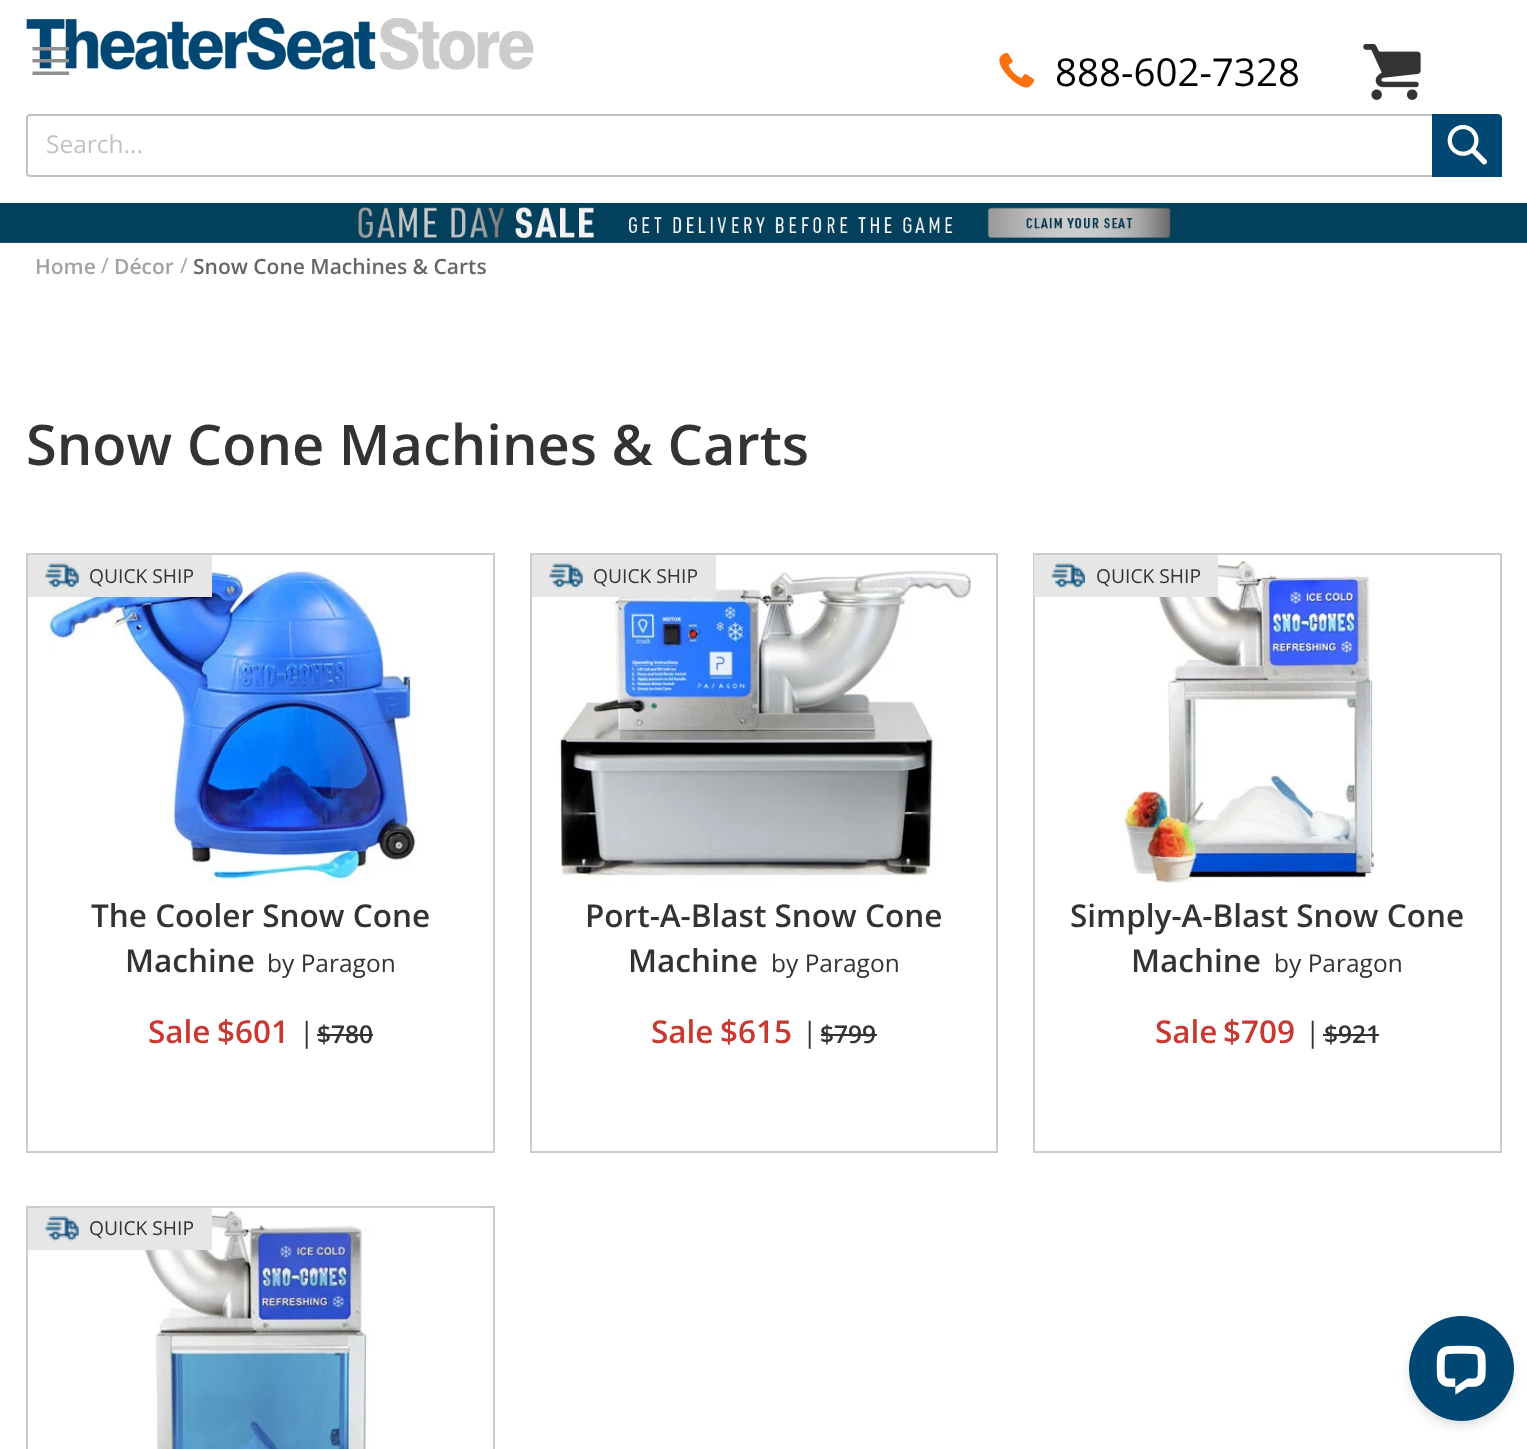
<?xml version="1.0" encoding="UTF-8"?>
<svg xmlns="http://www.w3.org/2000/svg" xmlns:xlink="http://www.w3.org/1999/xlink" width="1527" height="1449">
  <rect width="100%" height="100%" fill="#ffffff" />
  <image x="26" y="18" width="508" height="52" xlink:href="image1.png" />
  <path d="M 32.5 47 v 3.5 h 36.5 v -3.5 z m 0 15.5 h 36.5 v -3.5 h -36.5 z m 0 12.5 h 36.5 v -3.5 h -36.5 z" fill="#8f8f8f" />
  <image x="999" y="53" width="35" height="35" xlink:href="image2.png" />
  <image x="1363" y="44" width="58" height="56" xlink:href="image3.png" />
  <rect x="27" y="115" width="1474" height="61" rx="3" fill="none" stroke="#c2c2c2" stroke-width="2" />
  <path d="M 1432 114 h 65 c 3 0 5 2 5 5 v 58 h -70 z" fill="#014774" />
  <image x="1447" y="124" width="41" height="41" xlink:href="image4.png" />
  <image x="0" y="203" width="1527" height="41" xlink:href="image5.png" />
  <rect x="27" y="554" width="467" height="598" fill="none" stroke="#cccccc" stroke-width="2" />
  <image x="48" y="570" width="370" height="313" xlink:href="image7.png" />
  <rect x="28" y="555" width="184" height="42" fill="#e6e6e6" />
  <image x="45" y="563" width="34" height="25" xlink:href="image6.png" />
  <rect x="317" y="1034" width="56" height="2" fill="#333333" />
  <rect x="531" y="554" width="466" height="598" fill="none" stroke="#cccccc" stroke-width="2" />
  <image x="557" y="570" width="414" height="312" xlink:href="image8.png" />
  <rect x="532" y="555" width="184" height="42" fill="#e6e6e6" />
  <image x="549" y="563" width="34" height="25" xlink:href="image6.png" />
  <rect x="821" y="1034" width="56" height="2" fill="#333333" />
  <rect x="1034" y="554" width="467" height="598" fill="none" stroke="#cccccc" stroke-width="2" />
  <image x="1103" y="559" width="272" height="324" xlink:href="image9.png" />
  <rect x="1034" y="555" width="184" height="42" fill="#e6e6e6" />
  <image x="1051" y="563" width="34" height="25" xlink:href="image10.png" />
  <rect x="1323" y="1034" width="56" height="2" fill="#333333" />
  <rect x="27" y="1207" width="467" height="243" fill="none" stroke="#cccccc" stroke-width="2" />
  <image x="40" y="1207" width="441" height="242" xlink:href="image11.png" />
  <rect x="28" y="1208" width="184" height="42" fill="#e6e6e6" />
  <image x="45" y="1216" width="34" height="25" xlink:href="image12.png" />
  <rect x="1412" y="1325" width="98" height="98" rx="49" fill="#000000" fill-opacity="0.18" filter="blur(7px)" />
  <circle cx="1461.5" cy="1368.5" r="52.5" fill="#014774" />
  <image x="1436" y="1345" width="50" height="50" xlink:href="image13.png" />
  <text x="1055" y="86" style="font-family: Open Sans; font-size: 38.5px; fill: #000000">888-602-7328</text>
  <text x="46" y="153" style="font-family: Open Sans; font-size: 24.5px; fill: #c2c2c2">Search...</text>
  <text x="35" y="274" style="font-family: Open Sans; font-size: 21px; font-weight: 600; fill: #a3a3a3">Home</text>
  <text x="101" y="273" style="font-family: Open Sans; font-size: 21px; fill: #a3a3a3">/</text>
  <text x="114" y="274" style="font-family: Open Sans; font-size: 21px; font-weight: 600; fill: #a3a3a3">Décor</text>
  <text x="180" y="273" style="font-family: Open Sans; font-size: 21px; fill: #a3a3a3">/</text>
  <text x="193" y="274" style="font-family: Open Sans; font-size: 21px; font-weight: 600; fill: #666666">Snow Cone Machines &amp; Carts</text>
  <text x="26" y="465" style="font-family: Open Sans; font-size: 56px; font-weight: 600; fill: #333333">Snow Cone Machines &amp; Carts</text>
  <text x="89" y="583" style="font-family: Open Sans; font-size: 19.25px; fill: #333333">QUICK SHIP</text>
  <text x="91" y="927" style="font-family: Open Sans; font-size: 31.5px; font-weight: 600; fill: #333333">The Cooler Snow Cone</text>
  <text x="125" y="972" style="font-family: Open Sans; font-size: 31.5px; font-weight: 600; fill: #333333">Machine</text>
  <text x="267" y="972" style="font-family: Open Sans; font-size: 24.5px; fill: #333333">by Paragon</text>
  <text x="148" y="1043" style="font-family: Open Sans; font-size: 31.5px; font-weight: 600; fill: #c93932">Sale</text>
  <text x="217" y="1043" style="font-family: Open Sans; font-size: 31.5px; font-weight: 600; fill: #c93932">$601</text>
  <text x="299" y="1042" style="font-family: Open Sans; font-size: 28px; fill: #333333">|</text>
  <text x="317" y="1043" style="font-family: Open Sans; font-size: 24.5px; font-weight: 600; fill: #333333">$780</text>
  <text x="593" y="583" style="font-family: Open Sans; font-size: 19.25px; fill: #333333">QUICK SHIP</text>
  <text x="585" y="927" style="font-family: Open Sans; font-size: 31.5px; font-weight: 600; fill: #333333">Port-A-Blast Snow Cone</text>
  <text x="628" y="972" style="font-family: Open Sans; font-size: 31.5px; font-weight: 600; fill: #333333">Machine</text>
  <text x="771" y="972" style="font-family: Open Sans; font-size: 24.5px; fill: #333333">by Paragon</text>
  <text x="651" y="1043" style="font-family: Open Sans; font-size: 31.5px; font-weight: 600; fill: #c93932">Sale</text>
  <text x="720" y="1043" style="font-family: Open Sans; font-size: 31.5px; font-weight: 600; fill: #c93932">$615</text>
  <text x="802" y="1042" style="font-family: Open Sans; font-size: 28px; fill: #333333">|</text>
  <text x="820" y="1043" style="font-family: Open Sans; font-size: 24.5px; font-weight: 600; fill: #333333">$799</text>
  <text x="1096" y="583" style="font-family: Open Sans; font-size: 19.25px; fill: #333333">QUICK SHIP</text>
  <text x="1070" y="927" style="font-family: Open Sans; font-size: 31.5px; font-weight: 600; fill: #333333">Simply-A-Blast Snow Cone</text>
  <text x="1131" y="972" style="font-family: Open Sans; font-size: 31.5px; font-weight: 600; fill: #333333">Machine</text>
  <text x="1274" y="972" style="font-family: Open Sans; font-size: 24.5px; fill: #333333">by Paragon</text>
  <text x="1155" y="1043" style="font-family: Open Sans; font-size: 31.5px; font-weight: 600; fill: #c93932">Sale</text>
  <text x="1223" y="1043" style="font-family: Open Sans; font-size: 31.5px; font-weight: 600; fill: #c93932">$709</text>
  <text x="1305" y="1042" style="font-family: Open Sans; font-size: 28px; fill: #333333">|</text>
  <text x="1324" y="1043" style="font-family: Open Sans; font-size: 24.5px; font-weight: 600; fill: #333333">$921</text>
  <text x="89" y="1235" style="font-family: Open Sans; font-size: 19.25px; fill: #333333">QUICK SHIP</text>
</svg>
